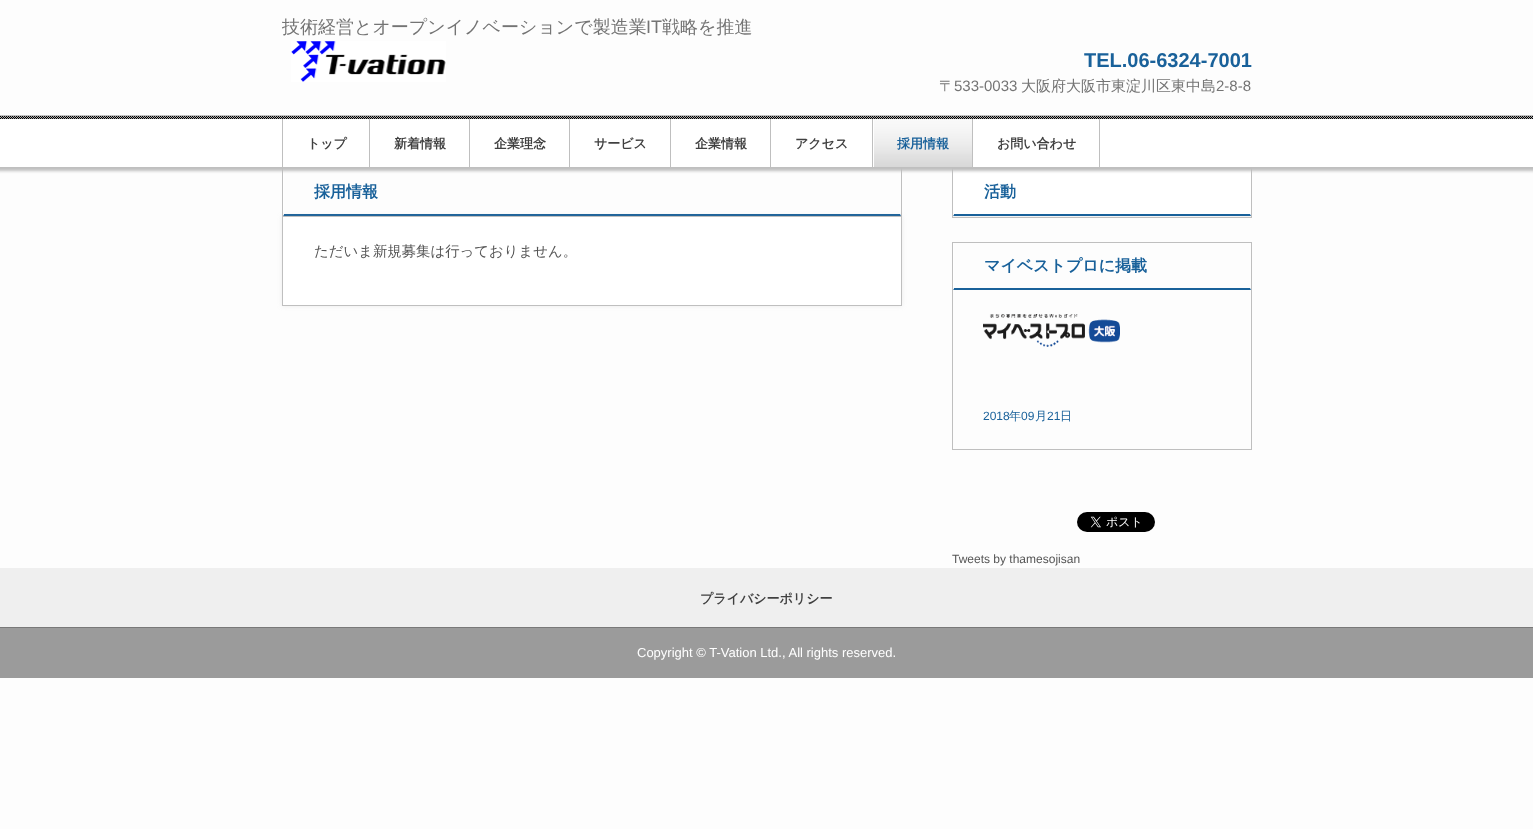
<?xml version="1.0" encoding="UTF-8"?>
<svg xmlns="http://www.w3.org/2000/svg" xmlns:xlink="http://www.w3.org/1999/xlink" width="1533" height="829">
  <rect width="100%" height="100%" fill="#fdfdfd" />
  <image x="291" y="41" width="155" height="41" xlink:href="image1.png" />
  <rect x="901" y="168" width="1" height="48" fill="#bfbfbf" />
  <rect x="282" y="168" width="1" height="48" fill="#bfbfbf" />
  <path d="M 901 216 h -618 l 1 -2 h 616 z" fill="#19619a" />
  <path d="M 283 216 v -47 l 1 1 v 44 z" fill="#ffffff" />
  <rect x="952.5" y="168.5" width="299" height="49" fill="#f4f4f4" stroke="#bfbfbf" />
  <rect x="954" y="170" width="296" height="44" fill="#ffffff" />
  <path d="M 1251 169 v 47 l -1 -2 v -44 z" fill="#ffffff" />
  <path d="M 1251 216 h -298 l 1 -2 h 296 z" fill="#19619a" />
  <path d="M 953 216 v -47 l 1 1 v 44 z" fill="#ffffff" />
  <rect x="-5" y="118" width="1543" height="53" fill="#bfbfbf" filter="blur(1.5px)" />
  <rect y="119" width="1533" height="48" fill="#ffffff" />
  <rect y="115" width="1533" height="1" fill="#bfbfbf" />
  <image x="0" y="116" width="1533" height="3" xlink:href="image2.png" />
  <rect x="282" y="119" width="1" height="48" fill="#bfbfbf" />
  <rect x="369" y="119" width="1" height="48" fill="#bfbfbf" />
  <rect x="469" y="119" width="1" height="48" fill="#bfbfbf" />
  <rect x="569" y="119" width="1" height="48" fill="#bfbfbf" />
  <rect x="670" y="119" width="1" height="48" fill="#bfbfbf" />
  <rect x="770" y="119" width="1" height="48" fill="#bfbfbf" />
  <rect x="872" y="119" width="1" height="48" fill="#bfbfbf" />
  <image x="874" y="119" width="98" height="48" xlink:href="image3.png" />
  <rect x="972" y="119" width="1" height="48" fill="#bfbfbf" />
  <rect x="1099" y="119" width="1" height="48" fill="#bfbfbf" />
  <rect x="282" y="216" width="620" height="90" fill="#a2a2a2" fill-opacity="0.2" filter="blur(2.5px)" />
  <rect x="282.5" y="216.5" width="619" height="89" fill="#ffffff" stroke="#bfbfbf" />
  <rect x="952.5" y="242.5" width="299" height="207" fill="none" stroke="#bfbfbf" />
  <path d="M 1251 290 h -298 l 1 -2 h 296 z" fill="#19619a" />
  <path d="M 953 290 v -47 l 1 1 v 44 z" fill="#ffffff" />
  <image x="983" y="314" width="137" height="33" xlink:href="image4.png" />
  <image x="1077" y="512" width="78" height="20" xlink:href="image5.png" />
  <rect y="568" width="1533" height="59" fill="#efefef" />
  <rect y="628" width="1533" height="50" fill="#9b9b9b" />
  <rect y="627" width="1533" height="1" fill="#797979" />
  <text x="282" y="33" style="font-family: WenQuanYi Zen Hei; font-size: 18px; font-weight: 500; fill: #747474">技術経営とオープンイノベーションで製造業</text>
  <text x="646" y="33" style="font-family: Liberation Sans; font-size: 18px; fill: #747474">IT</text>
  <text x="662" y="33" style="font-family: WenQuanYi Zen Hei; font-size: 18px; font-weight: 500; fill: #747474">戦略を推進</text>
  <text x="1084" y="67" style="font-family: Liberation Sans; font-size: 20px; font-weight: bold; fill: #19619a">TEL.06-6324-7001</text>
  <text x="939" y="91" style="font-family: WenQuanYi Zen Hei; font-size: 15px; font-weight: 500; fill: #747474">〒</text>
  <text x="954" y="91" style="font-family: Liberation Sans; font-size: 15px; fill: #747474">533-0033</text>
  <text x="1021" y="91" style="font-family: WenQuanYi Zen Hei; font-size: 15px; font-weight: 500; fill: #747474">大阪府大阪市東淀川区東中島</text>
  <text x="1216" y="91" style="font-family: Liberation Sans; font-size: 15px; fill: #747474">2-8-8</text>
  <text x="307" y="148" style="font-family: WenQuanYi Zen Hei; font-size: 13px; font-weight: bold; fill: #404040">トップ</text>
  <text x="394" y="148" style="font-family: WenQuanYi Zen Hei; font-size: 13px; font-weight: bold; fill: #404040">新着情報</text>
  <text x="494" y="148" style="font-family: WenQuanYi Zen Hei; font-size: 13px; font-weight: bold; fill: #404040">企業理念</text>
  <text x="594" y="148" style="font-family: WenQuanYi Zen Hei; font-size: 13px; font-weight: bold; fill: #404040">サービス</text>
  <text x="695" y="148" style="font-family: WenQuanYi Zen Hei; font-size: 13px; font-weight: bold; fill: #404040">企業情報</text>
  <text x="795" y="148" style="font-family: WenQuanYi Zen Hei; font-size: 13px; font-weight: bold; fill: #404040">アクセス</text>
  <text x="897" y="148" style="font-family: WenQuanYi Zen Hei; font-size: 13px; font-weight: bold; fill: #19619a">採用情報</text>
  <text x="997" y="148" style="font-family: WenQuanYi Zen Hei; font-size: 13px; font-weight: bold; fill: #404040">お問い合わせ</text>
  <text x="314" y="197" style="font-family: WenQuanYi Zen Hei; font-size: 16px; font-weight: bold; fill: #19619a">採用情報</text>
  <text x="314" y="256" style="font-family: WenQuanYi Zen Hei; font-size: 14.4px; font-weight: 500; fill: #555555">ただいま新規募集は行っておりません。</text>
  <text x="984" y="197" style="font-family: WenQuanYi Zen Hei; font-size: 16px; font-weight: bold; fill: #19619a">活動</text>
  <text x="984" y="271" style="font-family: WenQuanYi Zen Hei; font-size: 16px; font-weight: bold; fill: #19619a">マイベストプロに掲載</text>
  <text x="983" y="420" style="font-family: Liberation Sans; font-size: 12px; fill: #19619a">2018</text>
  <text x="1009" y="420" style="font-family: WenQuanYi Zen Hei; font-size: 12px; font-weight: 500; fill: #19619a">年</text>
  <text x="1021" y="420" style="font-family: Liberation Sans; font-size: 12px; fill: #19619a">09</text>
  <text x="1035" y="420" style="font-family: WenQuanYi Zen Hei; font-size: 12px; font-weight: 500; fill: #19619a">月</text>
  <text x="1047" y="420" style="font-family: Liberation Sans; font-size: 12px; fill: #19619a">21</text>
  <text x="1060" y="420" style="font-family: WenQuanYi Zen Hei; font-size: 12px; font-weight: 500; fill: #19619a">日</text>
  <text x="952" y="563" style="font-family: Liberation Sans; font-size: 12px; fill: #555555">Tweets by thamesojisan</text>
  <text x="700" y="603" style="font-family: WenQuanYi Zen Hei; font-size: 13px; font-weight: bold; fill: #404040">プライバシーポリシー</text>
  <text x="637" y="657" style="font-family: Liberation Sans; font-size: 13px; fill: #ffffff">Copyright © T-Vation Ltd., All rights reserved.</text>
</svg>
